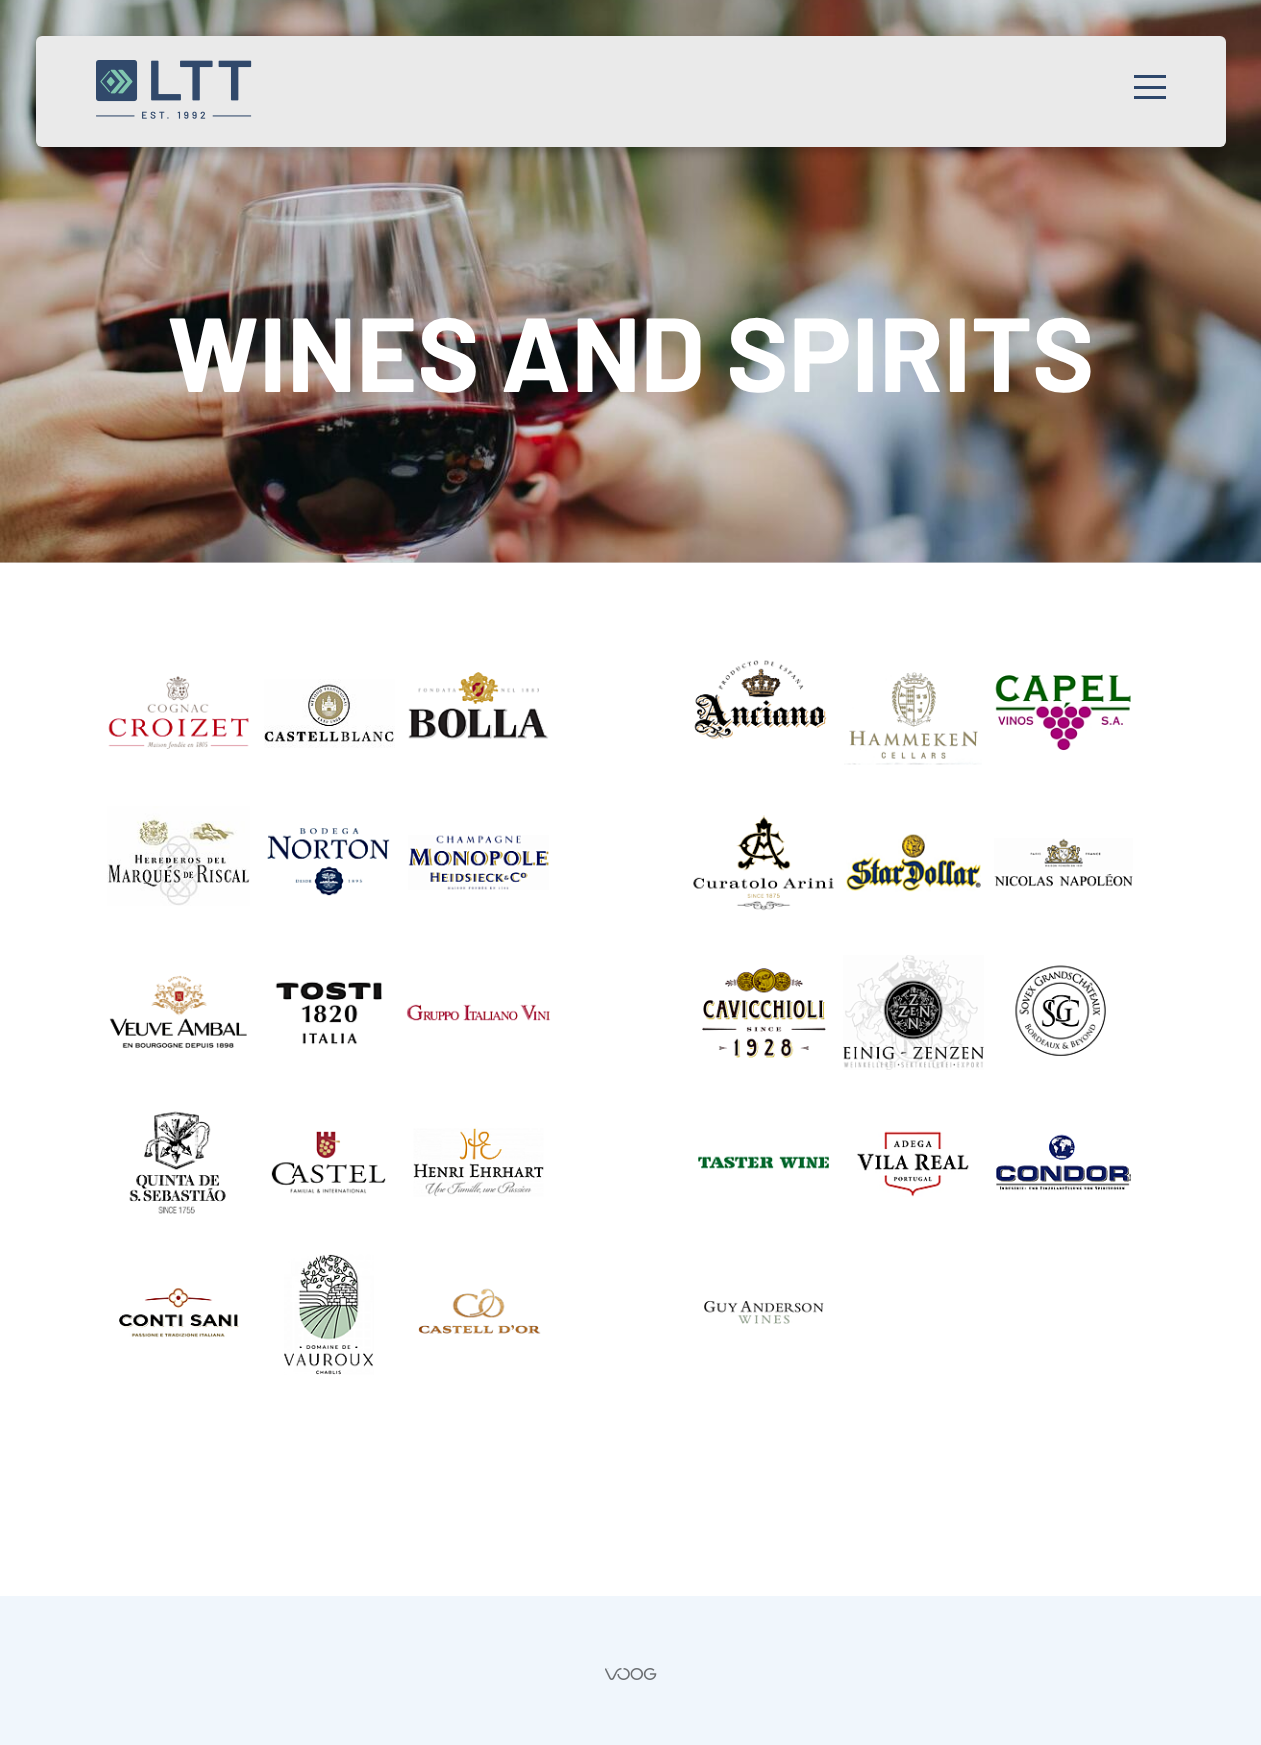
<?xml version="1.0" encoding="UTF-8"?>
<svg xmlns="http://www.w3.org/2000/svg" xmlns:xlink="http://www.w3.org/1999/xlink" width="1261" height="1745">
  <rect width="100%" height="100%" fill="#ffffff" />
  <rect y="562" width="1261" height="1" fill="#e6e6e6" />
  <image x="0" y="0" width="1261" height="563" xlink:href="image1.png" />
  <rect x="36" y="41" width="1190" height="111" rx="6" fill="#000000" fill-opacity="0.2" filter="blur(5px)" />
  <rect x="36" y="36" width="1190" height="111" rx="6" fill="#eaeaea" />
  <image x="96" y="60" width="156" height="59" xlink:href="image2.png" />
  <rect x="1134" y="75" width="32" height="3" fill="#2d476b" />
  <rect x="1134" y="86" width="32" height="3" fill="#2d476b" />
  <rect x="1134" y="96" width="32" height="3" fill="#2d476b" />
  <image x="108" y="676" width="141" height="73" xlink:href="image3.png" />
  <image x="264" y="679" width="131" height="69" xlink:href="image4.png" />
  <image x="408" y="672" width="141" height="68" xlink:href="image5.png" />
  <image x="107" y="806" width="143" height="100" xlink:href="image6.png" />
  <image x="267" y="828" width="123" height="68" xlink:href="image7.png" />
  <image x="408" y="835" width="141" height="55" xlink:href="image8.png" />
  <image x="109" y="975" width="138" height="73" xlink:href="image9.png" />
  <image x="275" y="981" width="108" height="64" xlink:href="image10.png" />
  <image x="406" y="1004" width="145" height="17" xlink:href="image11.png" />
  <image x="129" y="1111" width="97" height="103" xlink:href="image12.png" />
  <image x="271" y="1131" width="115" height="63" xlink:href="image13.png" />
  <image x="413" y="1127" width="131" height="70" xlink:href="image14.png" />
  <image x="119" y="1287" width="120" height="51" xlink:href="image15.png" />
  <image x="284" y="1254" width="90" height="121" xlink:href="image16.png" />
  <image x="418" y="1288" width="123" height="46" xlink:href="image17.png" />
  <image x="694" y="660" width="133" height="80" xlink:href="image18.png" />
  <image x="844" y="672" width="138" height="93" xlink:href="image19.png" />
  <image x="995" y="674" width="136" height="77" xlink:href="image20.png" />
  <image x="693" y="815" width="141" height="96" xlink:href="image21.png" />
  <image x="846" y="834" width="135" height="58" xlink:href="image22.png" />
  <image x="994" y="838" width="139" height="49" xlink:href="image23.png" />
  <image x="702" y="968" width="124" height="90" xlink:href="image24.png" />
  <image x="843" y="955" width="141" height="115" xlink:href="image25.png" />
  <image x="1015" y="965" width="91" height="92" xlink:href="image26.png" />
  <image x="698" y="1156" width="131" height="13" xlink:href="image27.png" />
  <image x="856" y="1131" width="113" height="66" xlink:href="image28.png" />
  <image x="996" y="1134" width="135" height="57" xlink:href="image29.png" />
  <image x="704" y="1300" width="120" height="24" xlink:href="image30.png" />
  <rect y="1596" width="1261" height="149" fill="#f0f6fc" />
  <image x="605" y="1668" width="52" height="12" xlink:href="image31.png" />
  <text x="167" y="392" style="font-family: Barlow; font-size: 105px; font-weight: bold; fill: #ffffff">WINES AND SPIRITS</text>
</svg>
